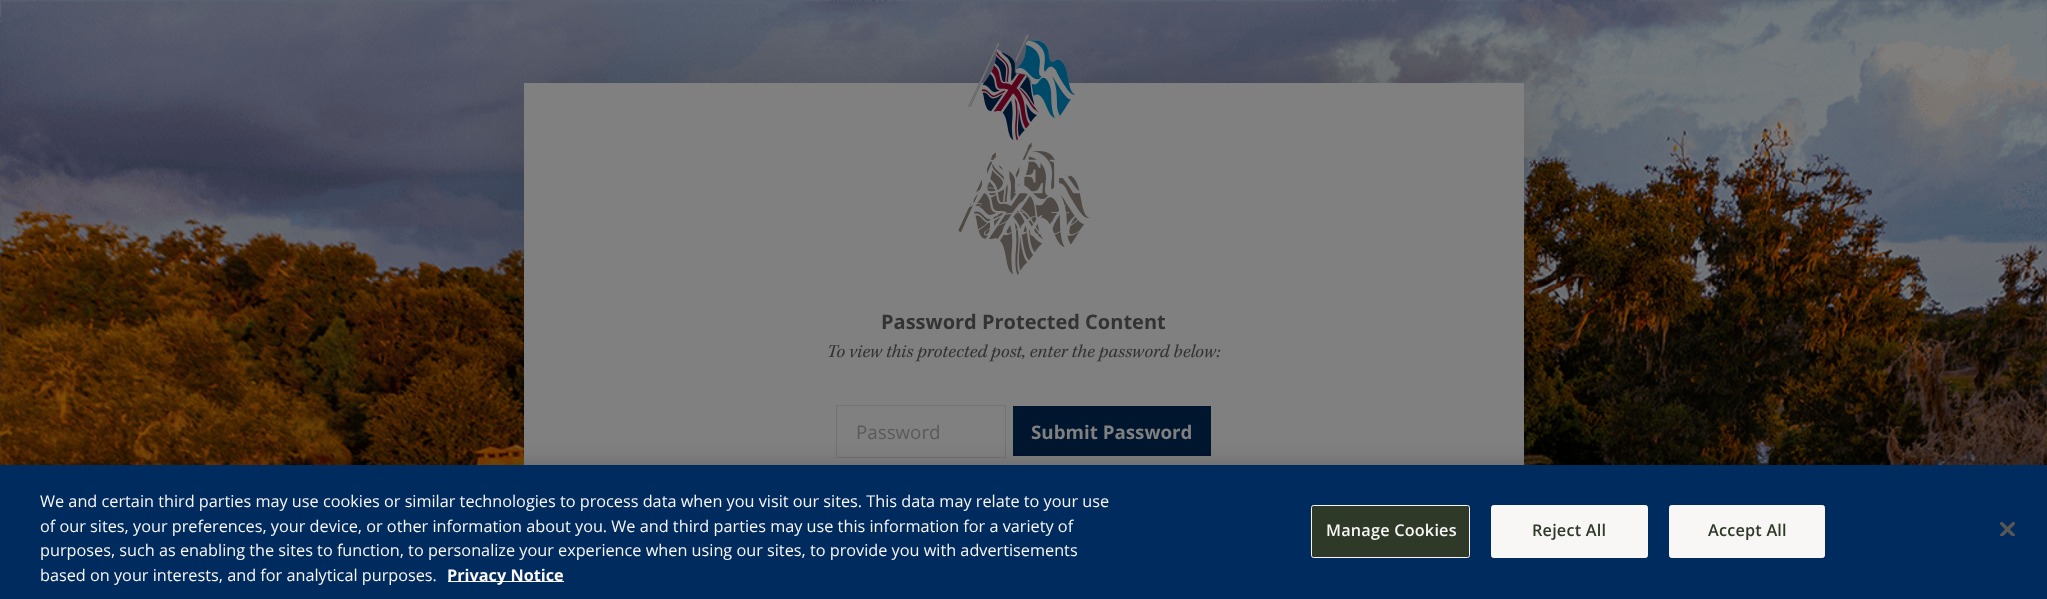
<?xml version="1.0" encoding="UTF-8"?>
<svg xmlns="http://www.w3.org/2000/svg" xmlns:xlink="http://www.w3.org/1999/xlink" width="2047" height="599">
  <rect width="100%" height="100%" fill="#808080" />
  <image x="0" y="0" width="2047" height="465" xlink:href="image2.png" />
  <rect x="524" y="83" width="1000" height="435" fill="#000000" fill-opacity="0.2" filter="blur(50px)" />
  <rect x="524" y="83" width="1000" height="382" fill="#808080" />
  <image x="958" y="143" width="132" height="132" xlink:href="image3.png" />
  <image x="958" y="34" width="123" height="202" xlink:href="image1.png" />
  <rect x="836.5" y="405.5" width="169" height="52" fill="none" stroke="#737373" />
  <rect x="1013" y="406" width="198" height="50" fill="#00162f" />
  <rect y="465" width="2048" height="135" fill="#000000" fill-opacity="0.2" filter="blur(11px)" />
  <rect y="465" width="2047" height="134" fill="#002b5e" />
  <rect x="448" y="581" width="116" height="1" fill="#f8f7f6" />
  <rect x="1311.5" y="505.5" width="158" height="52" rx="2" fill="#2e3928" stroke="#f8f7f6" />
  <rect x="1491.5" y="505.5" width="156" height="52" rx="2" fill="#f8f7f6" stroke="#f8f7f6" />
  <rect x="1669.5" y="505.5" width="155" height="52" rx="2" fill="#f8f7f6" stroke="#f8f7f6" />
  <image x="2000" y="521" width="15" height="15" xlink:href="image4.png" />
  <text x="881" y="329" style="font-family: Open Sans; font-size: 20px; font-weight: bold; fill: #333333">Password Protected Content</text>
  <text x="827" y="357" style="font-family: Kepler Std; font-size: 18.75px; font-style: italic; fill: #333333">To view this protected post, enter the password below:</text>
  <text x="856" y="439" style="font-family: Open Sans; font-size: 18.75px; fill: #5a5a5a">Password</text>
  <text x="1031" y="439" style="font-family: Open Sans; font-size: 18.75px; font-weight: bold; fill: #808080">Submit Password</text>
  <text x="40" y="507" style="font-family: Open Sans; font-size: 16.25px; fill: #f8f7f6">We and certain third parties may use cookies or similar technologies to process data when you visit our sites. This data may relate to your use</text>
  <text x="40" y="532" style="font-family: Open Sans; font-size: 16.25px; fill: #f8f7f6">of our sites, your preferences, your device, or other information about you. We and third parties may use this information for a variety of</text>
  <text x="40" y="556" style="font-family: Open Sans; font-size: 16.25px; fill: #f8f7f6">purposes, such as enabling the sites to function, to personalize your experience when using our sites, to provide you with advertisements</text>
  <text x="40" y="581" style="font-family: Open Sans; font-size: 16.25px; fill: #f8f7f6">based on your interests, and for analytical purposes.</text>
  <text x="447" y="581" style="font-family: Open Sans; font-size: 16.25px; font-weight: bold; fill: #f8f7f6">Privacy Notice</text>
  <text x="1326" y="536" style="font-family: Open Sans; font-size: 16.25px; font-weight: 600; letter-spacing: 0.2px; fill: #f8f7f6">Manage Cookies</text>
  <text x="1532" y="536" style="font-family: Open Sans; font-size: 16.25px; font-weight: 600; letter-spacing: 0.2px; fill: #2e3928">Reject All</text>
  <text x="1708" y="536" style="font-family: Open Sans; font-size: 16.25px; font-weight: 600; letter-spacing: 0.2px; fill: #2e3928">Accept All</text>
</svg>
